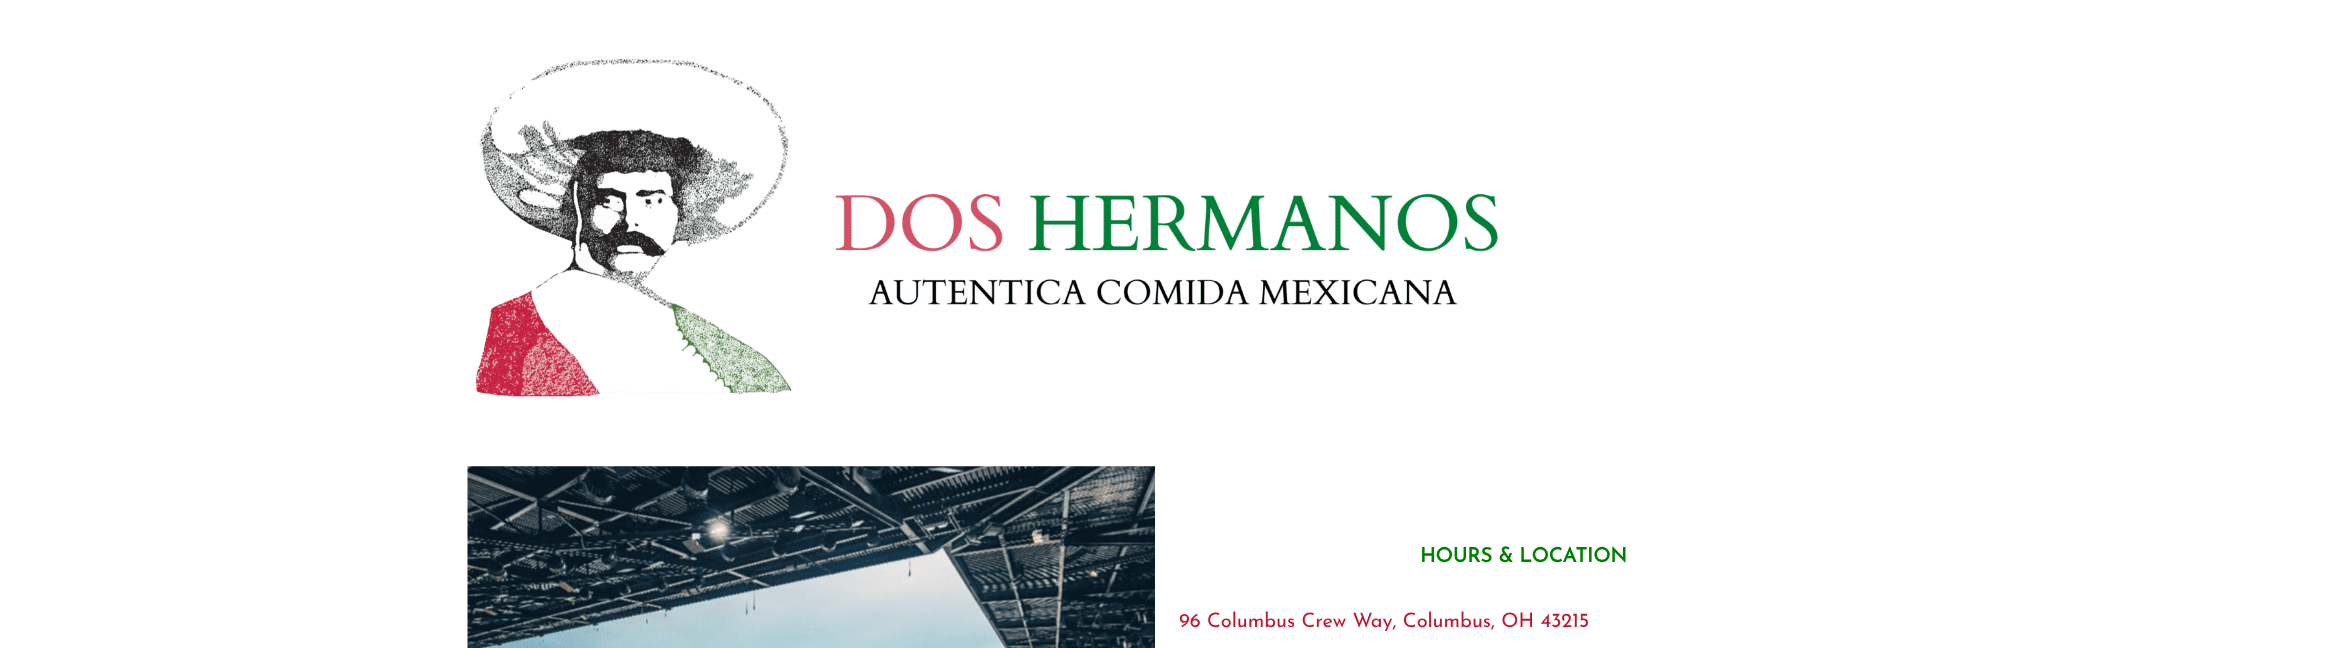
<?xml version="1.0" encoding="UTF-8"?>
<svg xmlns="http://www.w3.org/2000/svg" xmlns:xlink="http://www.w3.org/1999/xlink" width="2333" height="648">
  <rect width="100%" height="100%" fill="#ffffff" />
  <image x="474" y="58" width="318" height="339" xlink:href="image1.png" />
  <image x="835" y="193" width="663" height="112" xlink:href="image2.png" />
  <image x="467" y="466" width="688" height="182" xlink:href="image3.png" />
  <text x="1420" y="562" style="font-family: Josefin Sans; font-size: 20px; font-weight: bold; fill: #008000">HOURS &amp; LOCATION</text>
  <text x="1179" y="627" style="font-family: Josefin Sans; font-size: 20px; font-weight: 100; fill: #bd1932">96 Columbus Crew Way, Columbus, OH 43215</text>
</svg>
